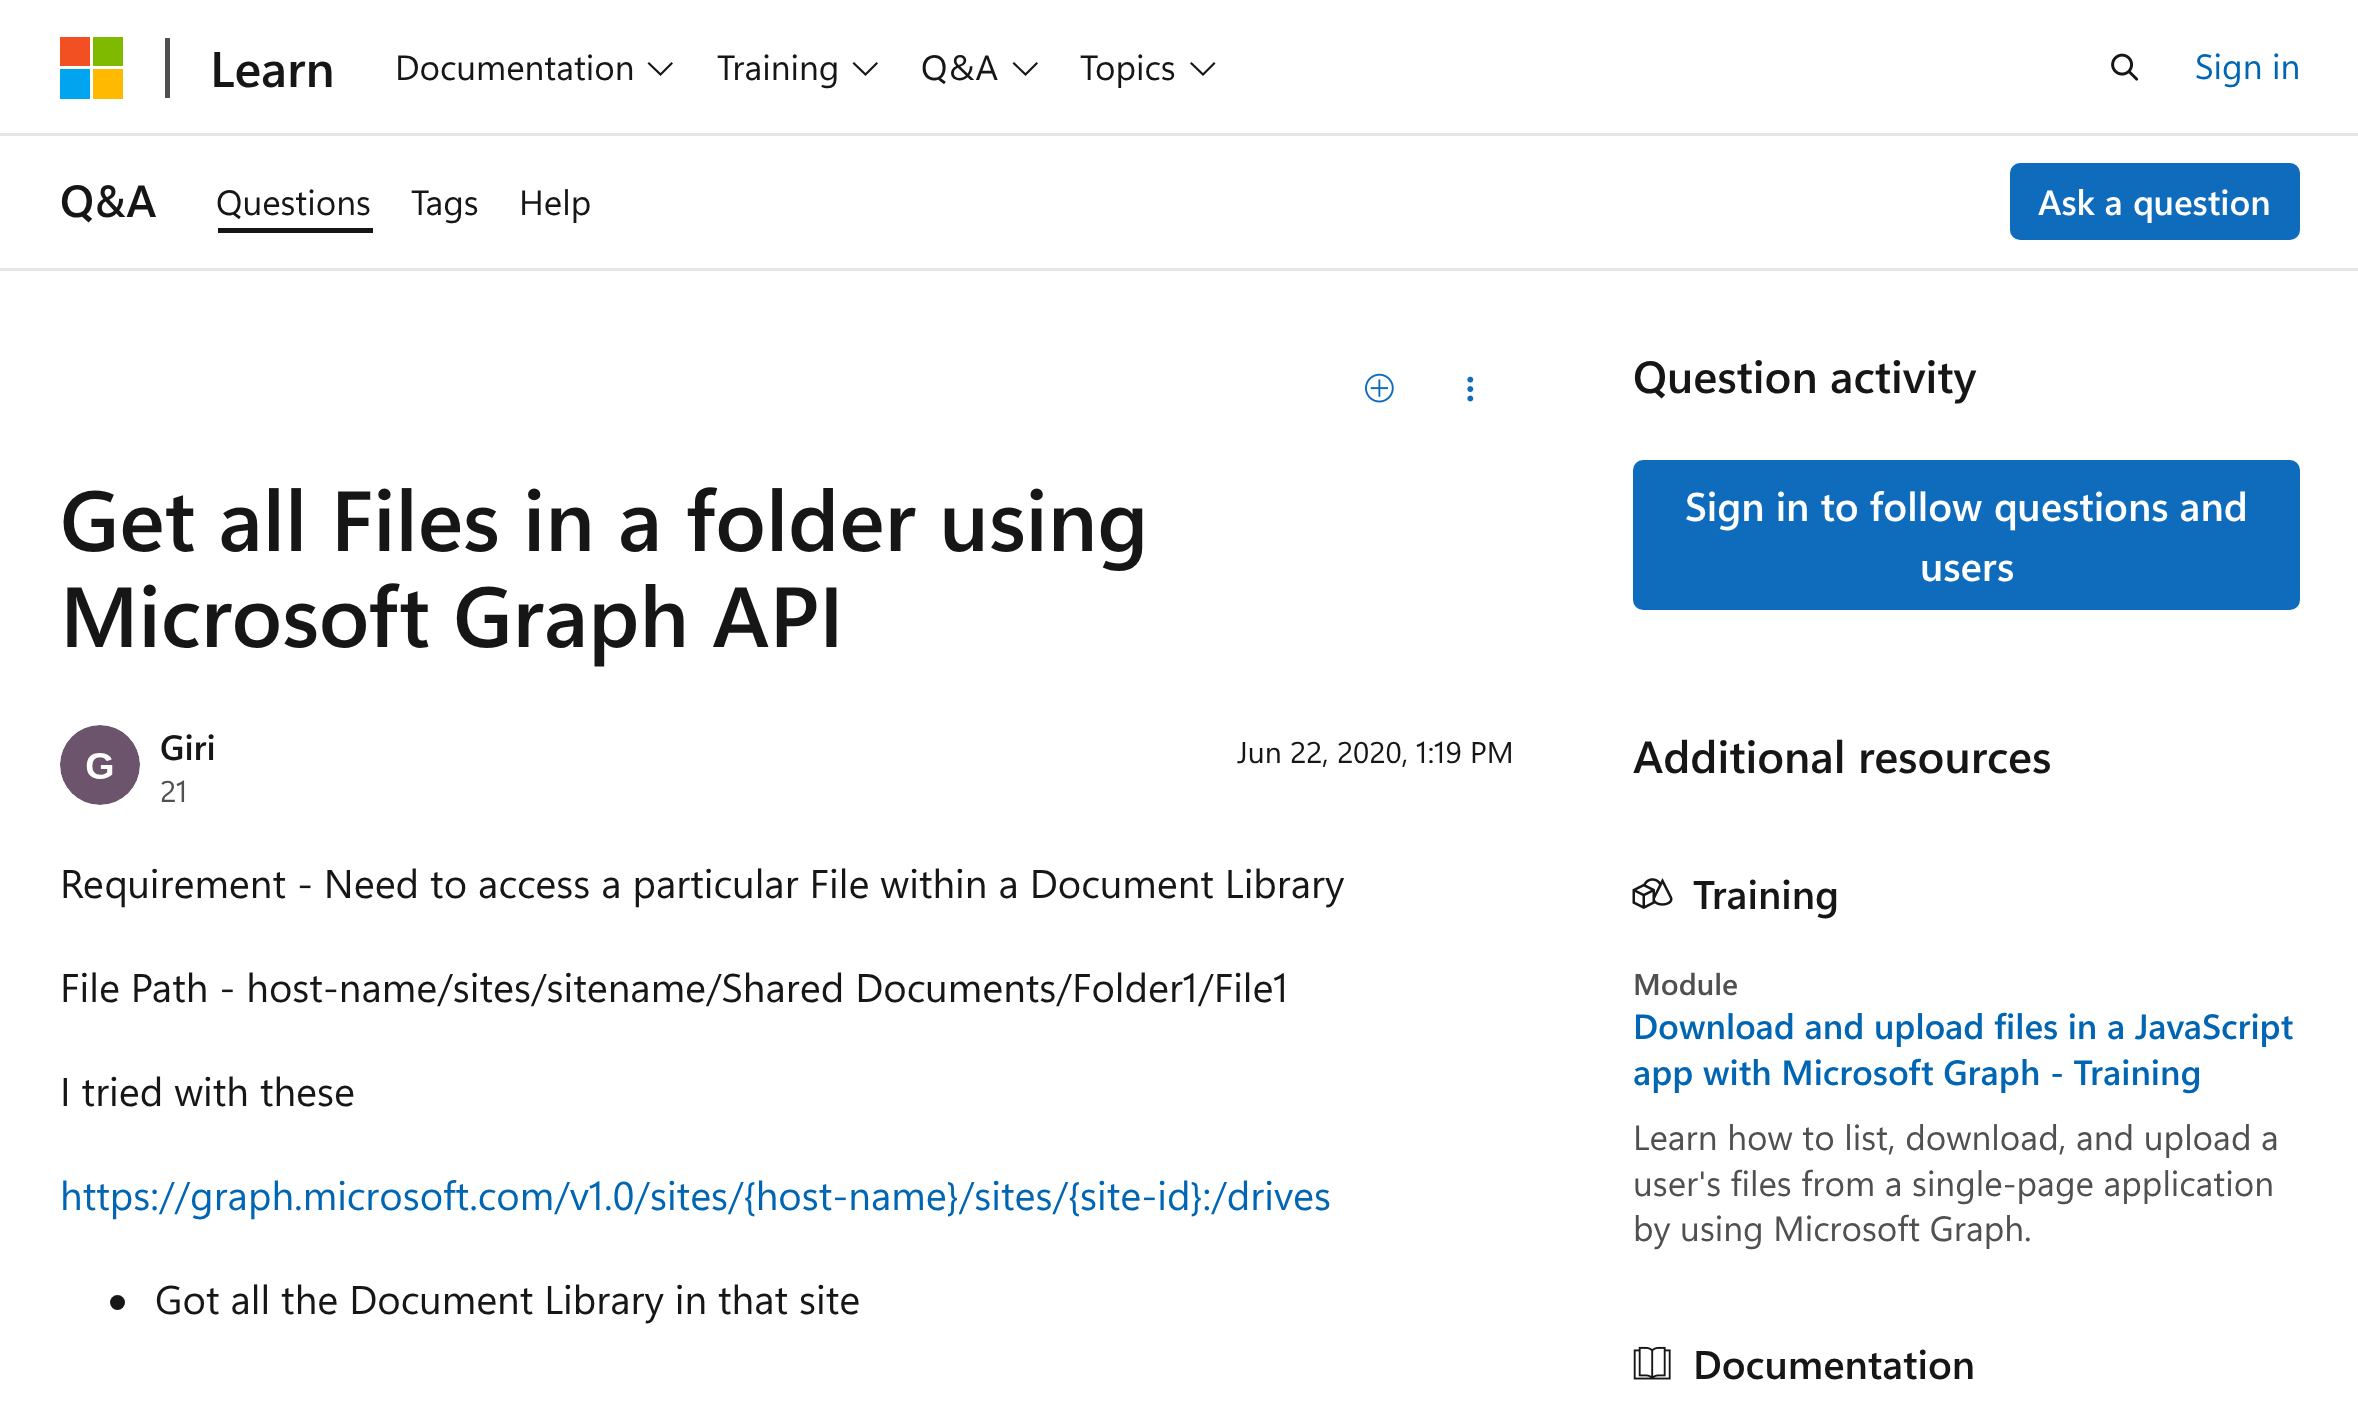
<?xml version="1.0" encoding="UTF-8"?>
<svg xmlns="http://www.w3.org/2000/svg" xmlns:xlink="http://www.w3.org/1999/xlink" width="2358" height="1407">
  <rect width="100%" height="100%" fill="#ffffff" />
  <rect y="133" width="2358" height="3" fill="#e6e6e6" />
  <rect x="60" y="37" width="30" height="29" fill="#f25022" />
  <rect x="93" y="37" width="30" height="29" fill="#7fba00" />
  <rect x="60" y="69" width="30" height="30" fill="#00a4ef" />
  <rect x="93" y="69" width="30" height="30" fill="#ffb900" />
  <rect x="165" y="38" width="5" height="60" fill="#505050" />
  <path d="M 660.5 76 l -13 -12.5 l 1.5 -1.5 l 11.5 11 l 11 -11 l 1.5 1.5 z" fill="#161616" />
  <path d="M 865.5 76 l -13 -12.5 l 1.5 -1.5 l 11.5 11 l 11 -11 l 1.5 1.5 z" fill="#161616" />
  <path d="M 1025.5 76 l -13 -12.5 l 1.5 -1.5 l 11.5 11 l 11 -11 l 1.5 1.5 z" fill="#161616" />
  <path d="M 1203 76 l -13 -12.5 l 1.5 -1.5 l 11.5 11 l 11 -11 l 1.5 1.5 z" fill="#161616" />
  <image x="2111" y="53" width="28" height="28" xlink:href="image1.png" />
  <rect y="268" width="2358" height="3" fill="#e6e6e6" />
  <rect x="218" y="228" width="155" height="5" fill="#161616" />
  <rect x="2011.5" y="164.5" width="287" height="74" rx="8.5" fill="#0f6cbd" stroke="#0f6cbd" stroke-width="3" />
  <image x="1365" y="373" width="29" height="30" xlink:href="image2.png" />
  <image x="1467" y="376" width="7" height="26" xlink:href="image3.png" />
  <circle cx="100" cy="765" r="40" fill="#f2f2f2" />
  <image x="60" y="725" width="80" height="80" xlink:href="image4.png" />
  <circle cx="117.5" cy="1302.5" r="7.5" fill="#161616" />
  <rect x="1634.5" y="461.5" width="664" height="147" rx="8.5" fill="#0f6cbd" stroke="#0f6cbd" stroke-width="3" />
  <image x="1632" y="878" width="41" height="31" xlink:href="image5.png" />
  <image x="1633" y="1346" width="38" height="34" xlink:href="image6.png" />
  <text x="210" y="87" style="font-family: Segoe UI; font-size: 50px; font-weight: 600; fill: #161616">Learn</text>
  <text x="395" y="80" style="font-family: Segoe UI; font-size: 35px; fill: #161616">Documentation</text>
  <text x="717" y="80" style="font-family: Segoe UI; font-size: 35px; fill: #161616">Training</text>
  <text x="921" y="80" style="font-family: Segoe UI; font-size: 35px; fill: #161616">Q&amp;A</text>
  <text x="1080" y="80" style="font-family: Segoe UI; font-size: 35px; fill: #161616">Topics</text>
  <text x="2195" y="79" style="font-family: Segoe UI; font-size: 35px; fill: #0065b3">Sign in</text>
  <text x="60" y="217" style="font-family: Segoe UI; font-size: 45px; font-weight: 600; fill: #161616">Q&amp;A</text>
  <text x="216" y="215" style="font-family: Segoe UI; font-size: 35px; fill: #161616">Questions</text>
  <text x="411" y="215" style="font-family: Segoe UI; font-size: 35px; fill: #161616">Tags</text>
  <text x="519" y="215" style="font-family: Segoe UI; font-size: 35px; fill: #161616">Help</text>
  <text x="2038" y="215" style="font-family: Segoe UI; font-size: 35px; font-weight: 600; fill: #ffffff">Ask a question</text>
  <text x="60" y="551" style="font-family: Segoe UI; font-size: 85px; font-weight: 600; fill: #161616">Get all Files in a folder using</text>
  <text x="60" y="647" style="font-family: Segoe UI; font-size: 85px; font-weight: 600; fill: #161616">Microsoft Graph API</text>
  <text x="160" y="760" style="font-family: Segoe UI; font-size: 35px; font-weight: 600; fill: #161616">Giri</text>
  <text x="160" y="802" style="font-family: Segoe UI; font-size: 30px; fill: #505050">21</text>
  <text x="1237" y="763" style="font-family: Segoe UI; font-size: 30px; fill: #161616">Jun 22, 2020, 1:19 PM</text>
  <text x="60" y="898" style="font-family: Segoe UI; font-size: 40px; fill: #161616">Requirement - Need to access a particular File within a Document Library</text>
  <text x="60" y="1002" style="font-family: Segoe UI; font-size: 40px; fill: #161616">File Path - host-name/sites/sitename/Shared Documents/Folder1/File1</text>
  <text x="60" y="1106" style="font-family: Segoe UI; font-size: 40px; fill: #161616">I tried with these</text>
  <text x="60" y="1210" style="font-family: Segoe UI; font-size: 40px; fill: #0065b3">https://graph.microsoft.com/v1.0/sites/{host-name}/sites/{site-id}:/drives</text>
  <text x="155" y="1314" style="font-family: Segoe UI; font-size: 40px; fill: #161616">Got all the Document Library in that site</text>
  <text x="1633" y="393" style="font-family: Segoe UI; font-size: 45px; font-weight: 600; fill: #161616">Question activity</text>
  <text x="1685" y="521" style="font-family: Segoe UI; font-size: 40px; font-weight: 600; fill: #ffffff">Sign in to follow questions and</text>
  <text x="1920" y="581" style="font-family: Segoe UI; font-size: 40px; font-weight: 600; fill: #ffffff">users</text>
  <text x="1633" y="773" style="font-family: Segoe UI; font-size: 45px; font-weight: 600; fill: #161616">Additional resources</text>
  <text x="1693" y="909" style="font-family: Segoe UI; font-size: 40px; font-weight: 600; fill: #161616">Training</text>
  <text x="1633" y="995" style="font-family: Segoe UI; font-size: 30px; font-weight: 600; fill: #505050">Module</text>
  <text x="1633" y="1039" style="font-family: Segoe UI; font-size: 35px; font-weight: 600; fill: #0065b3">Download and upload files in a JavaScript</text>
  <text x="1633" y="1085" style="font-family: Segoe UI; font-size: 35px; font-weight: 600; fill: #0065b3">app with Microsoft Graph - Training</text>
  <text x="1633" y="1150" style="font-family: Segoe UI; font-size: 35px; fill: #505050">Learn how to list, download, and upload a</text>
  <text x="1633" y="1196" style="font-family: Segoe UI; font-size: 35px; fill: #505050">user's files from a single-page application</text>
  <text x="1633" y="1241" style="font-family: Segoe UI; font-size: 35px; fill: #505050">by using Microsoft Graph.</text>
  <text x="1693" y="1379" style="font-family: Segoe UI; font-size: 40px; font-weight: 600; fill: #161616">Documentation</text>
</svg>
